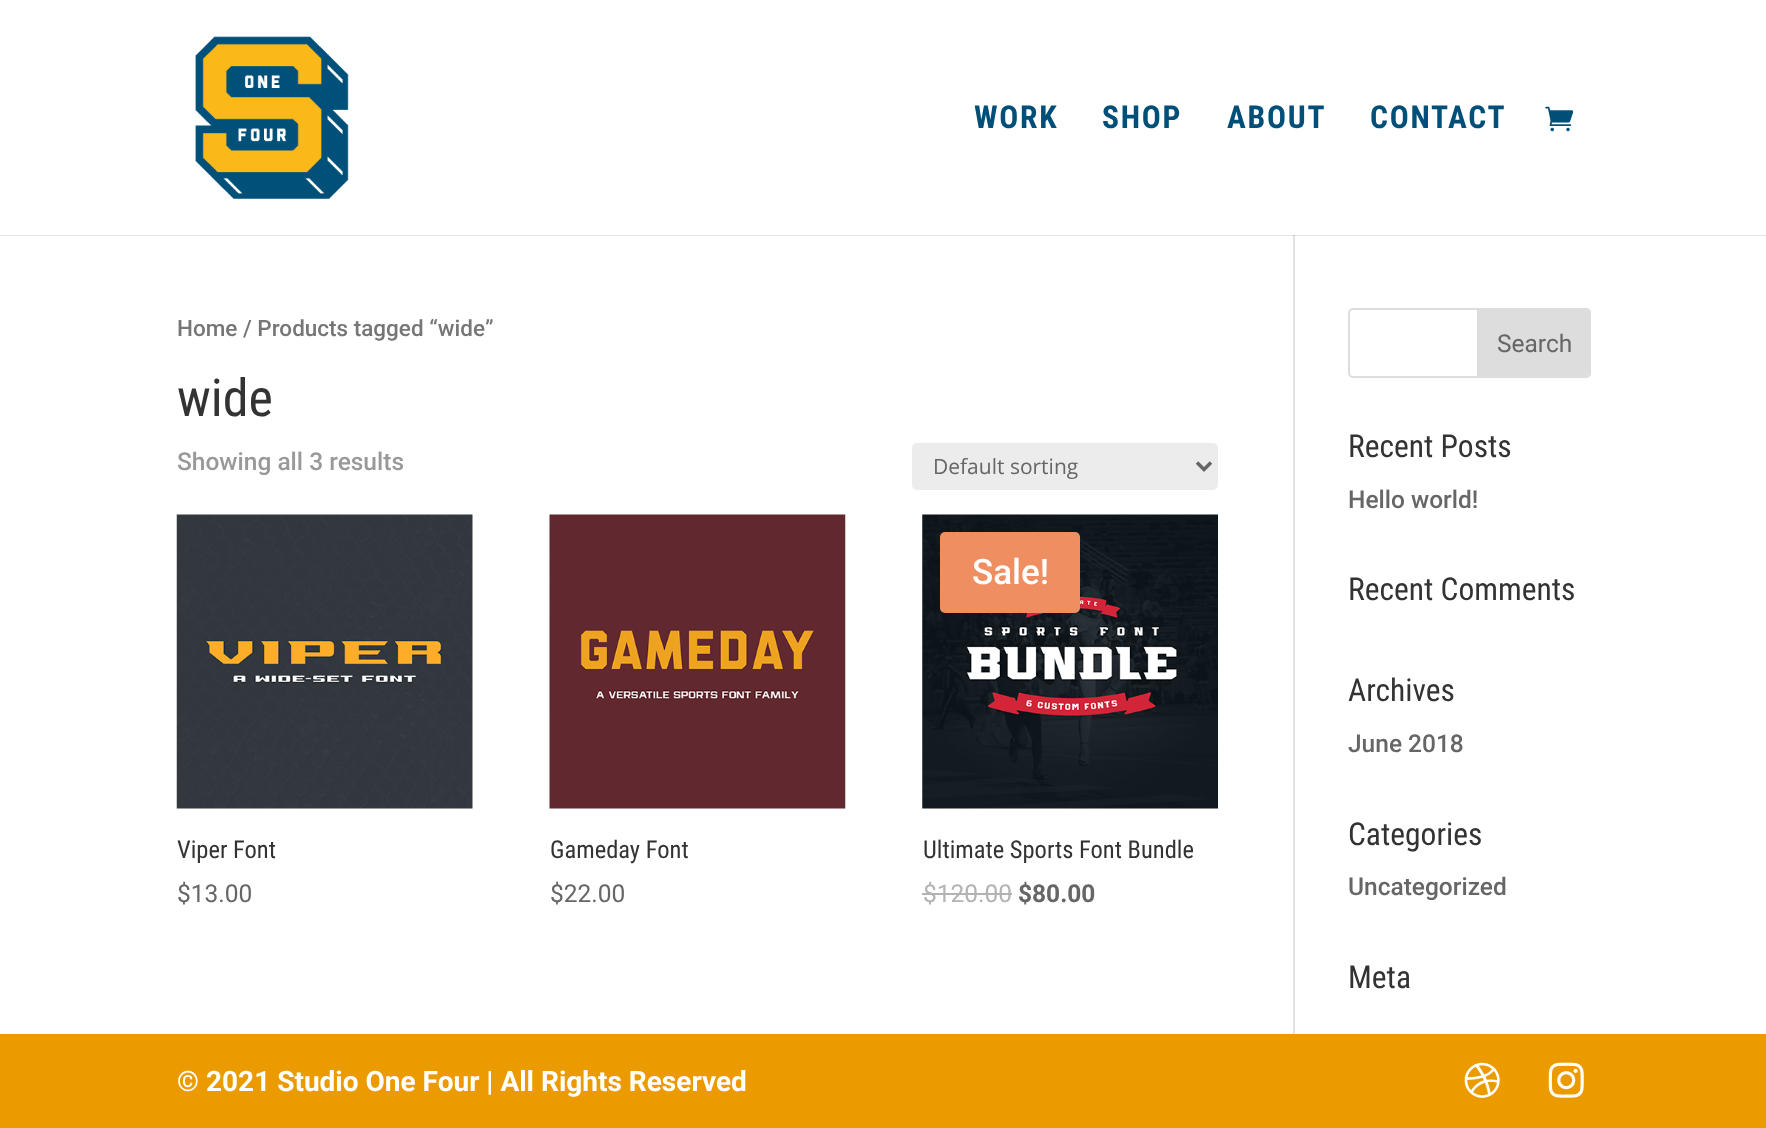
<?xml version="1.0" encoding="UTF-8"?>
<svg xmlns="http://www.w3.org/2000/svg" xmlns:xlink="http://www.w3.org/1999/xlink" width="1766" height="1128">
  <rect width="100%" height="100%" fill="#ffffff" />
  <rect x="1293" y="235" width="2" height="799" fill="#e2e2e2" />
  <path d="M 0 234 v 2 h 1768 v -234 v 232 z" fill="#000000" fill-opacity="0.1" />
  <rect y="234" width="1766" height="1" fill="#ffffff" />
  <image x="195" y="36" width="154" height="163" xlink:href="image1.png" />
  <image x="1545" y="106" width="29" height="26" xlink:href="image2.png" />
  <rect x="912" y="443" width="306" height="47" rx="5" fill="#ececec" />
  <path d="M 1197 462.5 l 7 7 l 7 -7" fill="none" stroke="#666666" stroke-width="3.5" />
  <image x="176" y="514" width="297" height="295" xlink:href="image3.png" />
  <image x="549" y="514" width="297" height="295" xlink:href="image4.png" />
  <image x="922" y="514" width="296" height="295" xlink:href="image5.png" />
  <rect x="940" y="532" width="140" height="81" rx="5" fill="#ef8f61" />
  <rect x="922" y="893" width="90" height="2" fill="#b3b3b3" />
  <rect x="1349" y="309" width="241" height="68" rx="4" fill="none" stroke="#dddddd" stroke-width="2" />
  <path d="M 1478 309 h 108 c 2 0 4 2 4 4 v 60 c 0 2 -2 4 -4 4 h -108 z" fill="#dddddd" stroke="#dddddd" stroke-width="2" />
  <rect y="1034" width="1766" height="94" fill="#eb9b00" />
  <image x="1464" y="1062" width="36" height="36" xlink:href="image6.png" />
  <image x="1548" y="1062" width="36" height="36" xlink:href="image7.png" />
  <text x="974" y="128" style="font-family: Roboto Condensed; font-size: 31.5px; font-weight: bold; letter-spacing: 1.75px; fill: #004f78">WORK</text>
  <text x="1102" y="128" style="font-family: Roboto Condensed; font-size: 31.5px; font-weight: bold; letter-spacing: 1.75px; fill: #004f78">SHOP</text>
  <text x="1227" y="128" style="font-family: Roboto Condensed; font-size: 31.5px; font-weight: bold; letter-spacing: 1.75px; fill: #004f78">ABOUT</text>
  <text x="1370" y="128" style="font-family: Roboto Condensed; font-size: 31.5px; font-weight: bold; letter-spacing: 1.75px; fill: #004f78">CONTACT</text>
  <text x="177" y="336" style="font-family: Roboto; font-size: 22.5px; font-weight: 500; fill: #767676">Home / Products tagged “wide”</text>
  <text x="177" y="416" style="font-family: Roboto Condensed; font-size: 52px; fill: #333333">wide</text>
  <text x="177" y="470" style="font-family: Roboto; font-size: 24.5px; font-weight: 500; fill: #999999">Showing all 3 results</text>
  <text x="933" y="474" style="font-family: Open Sans; font-size: 21px; fill: #666666">Default sorting</text>
  <text x="177" y="858" style="font-family: Roboto Condensed; font-size: 24.5px; fill: #333333">Viper Font</text>
  <text x="177" y="902" style="font-family: Roboto; font-size: 24.5px; fill: #666666">$13.00</text>
  <text x="550" y="858" style="font-family: Roboto Condensed; font-size: 24.5px; fill: #333333">Gameday Font</text>
  <text x="550" y="902" style="font-family: Roboto; font-size: 24.5px; fill: #666666">$22.00</text>
  <text x="972" y="584" style="font-family: Roboto; font-size: 35px; font-weight: 500; fill: #ffffff">Sale!</text>
  <text x="923" y="858" style="font-family: Roboto Condensed; font-size: 24.5px; fill: #333333">Ultimate Sports Font Bundle</text>
  <text x="923" y="902" style="font-family: Roboto; font-size: 24.5px; fill: #b3b3b3">$120.00</text>
  <text x="1018" y="902" style="font-family: Roboto; font-size: 24.5px; font-weight: bold; fill: #666666">$80.00</text>
  <text x="1497" y="352" style="font-family: Roboto; font-size: 24.5px; fill: #666666">Search</text>
  <text x="1348" y="457" style="font-family: Roboto Condensed; font-size: 31.5px; fill: #333333">Recent Posts</text>
  <text x="1348" y="508" style="font-family: Roboto; font-size: 24.5px; font-weight: 500; fill: #666666">Hello world!</text>
  <text x="1348" y="600" style="font-family: Roboto Condensed; font-size: 31.5px; fill: #333333">Recent Comments</text>
  <text x="1348" y="701" style="font-family: Roboto Condensed; font-size: 31.5px; fill: #333333">Archives</text>
  <text x="1348" y="752" style="font-family: Roboto; font-size: 24.5px; font-weight: 500; fill: #666666">June 2018</text>
  <text x="1348" y="845" style="font-family: Roboto Condensed; font-size: 31.5px; fill: #333333">Categories</text>
  <text x="1348" y="895" style="font-family: Roboto; font-size: 24.5px; font-weight: 500; fill: #666666">Uncategorized</text>
  <text x="1348" y="988" style="font-family: Roboto Condensed; font-size: 31.5px; fill: #333333">Meta</text>
  <text x="177" y="1091" style="font-family: Roboto; font-size: 28px; font-weight: bold; fill: #ffffff">© 2021 Studio One Four | All Rights Reserved</text>
</svg>
